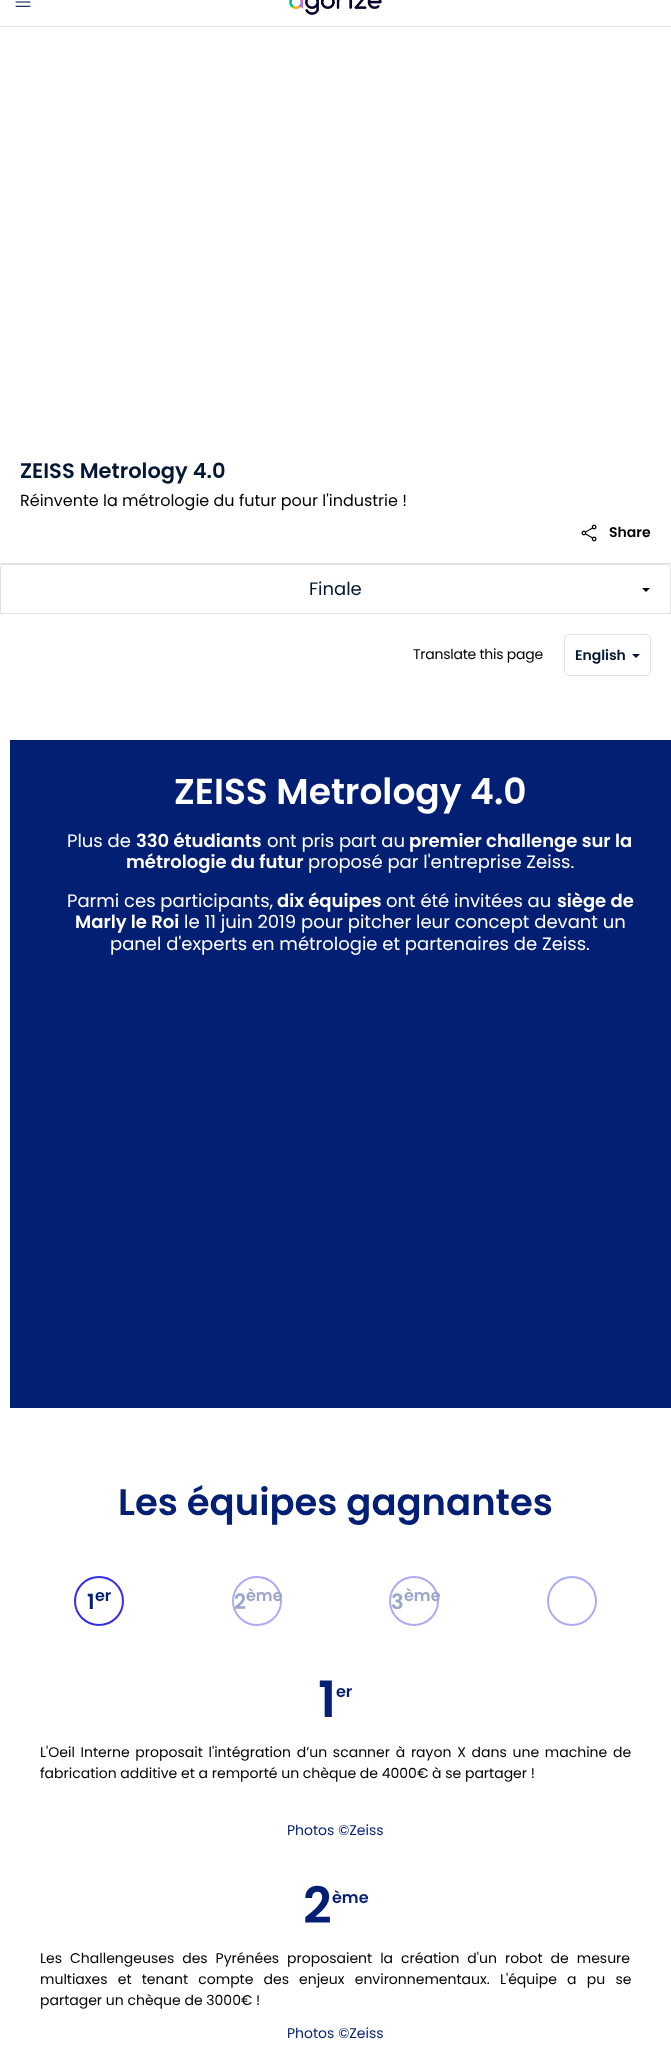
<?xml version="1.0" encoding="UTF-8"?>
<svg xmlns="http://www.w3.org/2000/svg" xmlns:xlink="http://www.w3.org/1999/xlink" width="671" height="2065">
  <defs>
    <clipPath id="clip1"><rect y="564" width="671" height="49" /></clipPath>
  </defs>
  <rect width="100%" height="100%" fill="#ffffff" />
  <rect y="26" width="671" height="1" fill="#dee2e4" />
  <image x="15" y="1" width="16" height="6" xlink:href="image1.png" />
  <image x="289" y="0" width="93" height="15" xlink:href="image2.png" />
  <rect y="563" width="671" height="1" fill="#dee2e4" />
  <image x="581" y="524" width="16" height="18" xlink:href="image3.png" />
  <rect y="613" width="671" height="1" fill="#dee2e4" />
  <g clip-path="url(#clip1)">
    <rect x="0.5" y="564.5" width="670" height="49" rx="2.5" fill="none" stroke="#dee2e4" />
  </g>
  <path d="M 642 588 h 8 l -4 4 z" fill="#000000" />
  <rect x="564.5" y="634.5" width="86" height="41" rx="4.5" fill="none" stroke="#dee2e4" />
  <path d="M 632 654 h 8 l -4 4 z" fill="#031633" />
  <rect x="10" y="740" width="661" height="668" fill="#031f73" />
  <circle cx="99" cy="1601" r="24" fill="none" stroke="#352ee7" stroke-width="2" />
  <circle cx="257" cy="1601" r="24" fill="none" stroke="#aeabf5" stroke-width="2" />
  <circle cx="414" cy="1601" r="24" fill="none" stroke="#aeabf5" stroke-width="2" />
  <circle cx="572" cy="1601" r="24" fill="none" stroke="#aeabf5" stroke-width="2" />
  <text x="20" y="478" style="font-family: Poppins; font-size: 21px; font-weight: 600; fill: #031633">ZEISS Metrology 4.0</text>
  <text x="20" y="506" style="font-family: Poppins; font-size: 16px; fill: #000000">Réinvente la métrologie du futur pour l'industrie !</text>
  <text x="609" y="537" style="font-family: Poppins; font-size: 14px; font-weight: 600; fill: #000000">Share</text>
  <text x="309" y="595" style="font-family: Poppins; font-size: 18px; fill: #031633">Finale</text>
  <text x="413" y="659" style="font-family: Poppins; font-size: 14px; letter-spacing: -0.25px; fill: #000000">Translate this page</text>
  <text x="575" y="660" style="font-family: Poppins; font-size: 14px; font-weight: 600; fill: #031633">English</text>
  <text x="174" y="804" style="font-family: Poppins; font-size: 36px; font-weight: 600; fill: #ffffff">ZEISS Metrology 4.0</text>
  <text x="67" y="847" style="font-family: Poppins; font-size: 18px; fill: #ffffff">Plus de</text>
  <text x="136" y="847" style="font-family: Poppins; font-size: 18px; font-weight: 600; fill: #ffffff">330 étudiants</text>
  <text x="267" y="847" style="font-family: Poppins; font-size: 18px; fill: #ffffff">ont pris part au</text>
  <text x="409" y="847" style="font-family: Poppins; font-size: 18px; font-weight: 600; fill: #ffffff">premier challenge sur la</text>
  <text x="126" y="868" style="font-family: Poppins; font-size: 18px; font-weight: 600; fill: #ffffff">métrologie du futur</text>
  <text x="308" y="868" style="font-family: Poppins; font-size: 18px; fill: #ffffff">proposé par l'entreprise Zeiss.</text>
  <text x="67" y="907" style="font-family: Poppins; font-size: 18px; fill: #ffffff">Parmi ces participants,</text>
  <text x="277" y="907" style="font-family: Poppins; font-size: 18px; font-weight: 600; fill: #ffffff">dix équipes</text>
  <text x="386" y="907" style="font-family: Poppins; font-size: 18px; fill: #ffffff">ont été invitées au</text>
  <text x="557" y="907" style="font-family: Poppins; font-size: 18px; font-weight: 600; fill: #ffffff">siège de</text>
  <text x="75" y="928" style="font-family: Poppins; font-size: 18px; font-weight: 600; fill: #ffffff">Marly le Roi</text>
  <text x="184" y="928" style="font-family: Poppins; font-size: 18px; fill: #ffffff">le 11 juin 2019 pour pitcher leur concept devant un</text>
  <text x="110" y="950" style="font-family: Poppins; font-size: 18px; fill: #ffffff">panel d'experts en métrologie et partenaires de Zeiss.</text>
  <text x="118" y="1515" style="font-family: Poppins; font-size: 37px; font-weight: 600; fill: #031f73">Les équipes gagnantes</text>
  <text x="87" y="1609" style="font-family: Poppins; font-size: 21px; font-weight: 600; fill: #031f73">1</text>
  <text x="95" y="1601" style="font-family: Poppins; font-size: 16px; font-weight: 600; fill: #031f73">er</text>
  <text x="234" y="1609" style="font-family: Poppins; font-size: 21px; font-weight: 600; fill: #9aa5c7">2</text>
  <text x="246" y="1601" style="font-family: Poppins; font-size: 16px; font-weight: 600; fill: #9aa5c7">ème</text>
  <text x="391" y="1609" style="font-family: Poppins; font-size: 21px; font-weight: 600; fill: #9aa5c7">3</text>
  <text x="404" y="1601" style="font-family: Poppins; font-size: 16px; font-weight: 600; fill: #9aa5c7">ème</text>
  <text x="318" y="1717" style="font-family: Poppins; font-size: 50px; font-weight: 600; fill: #031f73">1</text>
  <text x="336" y="1697" style="font-family: Poppins; font-size: 16px; font-weight: 600; fill: #031f73">er</text>
  <text x="40" y="1757" word-spacing="2" style="font-family: Poppins; font-size: 14px; fill: #000000">L'Oeil Interne proposait l'intégration d’un scanner à rayon X dans une machine de</text>
  <text x="40" y="1778" style="font-family: Poppins; font-size: 14px; fill: #000000">fabrication additive et a remporté un chèque de 4000€ à se partager !</text>
  <text x="287" y="1835" style="font-family: Poppins; font-size: 14px; fill: #031f73">Photos ©Zeiss</text>
  <text x="303" y="1923" style="font-family: Poppins; font-size: 50px; font-weight: 600; fill: #031f73">2</text>
  <text x="332" y="1903" style="font-family: Poppins; font-size: 16px; font-weight: 600; fill: #031f73">ème</text>
  <text x="40" y="1963" word-spacing="4.25" style="font-family: Poppins; font-size: 14px; fill: #000000">Les Challengeuses des Pyrénées proposaient la création d'un robot de mesure</text>
  <text x="40" y="1984" word-spacing="6.5" style="font-family: Poppins; font-size: 14px; fill: #000000">multiaxes et tenant compte des</text>
  <text x="299" y="1984" word-spacing="6.5" style="font-family: Poppins; font-size: 14px; fill: #000000">enjeux environnementaux. L'équipe a pu se</text>
  <text x="40" y="2005" style="font-family: Poppins; font-size: 14px; fill: #000000">partager un chèque de 3000€ !</text>
  <text x="287" y="2038" style="font-family: Poppins; font-size: 14px; fill: #031f73">Photos ©Zeiss</text>
</svg>
